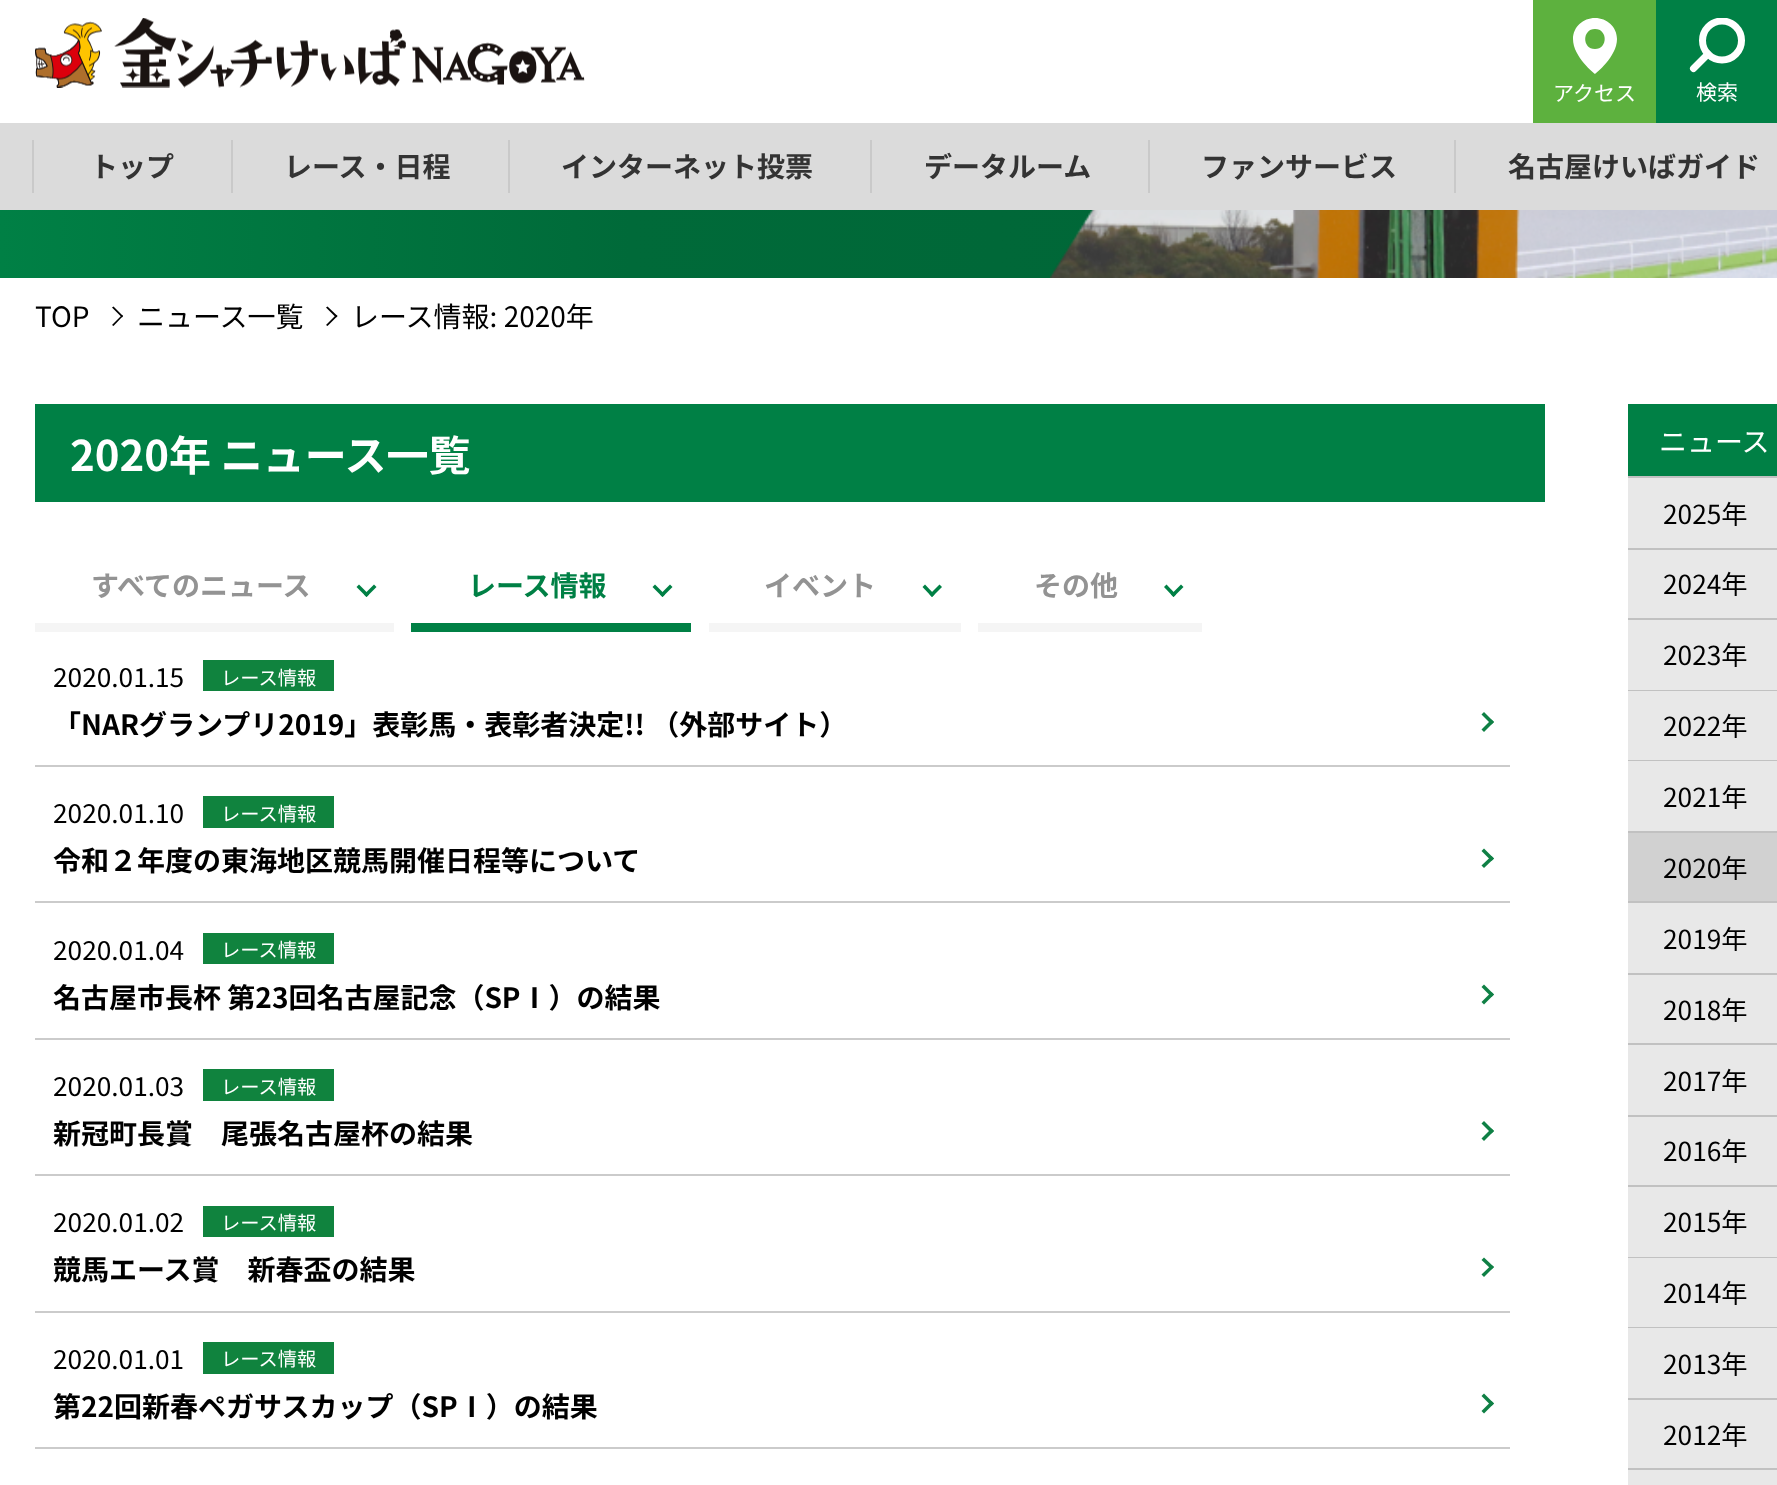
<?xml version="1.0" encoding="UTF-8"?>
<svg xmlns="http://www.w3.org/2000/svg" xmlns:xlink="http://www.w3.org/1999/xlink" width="1777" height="1485">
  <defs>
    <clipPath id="clip1"><rect x="1689" y="18" width="56" height="56" /></clipPath>
    <linearGradient id="g1" gradientUnits="userSpaceOnUse" x1="0" y1="138" x2="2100" y2="138"><stop offset="0" stop-color="#008045" /><stop offset="0.3" stop-color="#006a39" /><stop offset="1" stop-color="#006235" /></linearGradient>
  </defs>
  <rect width="100%" height="100%" fill="#ffffff" />
  <image x="35" y="18" width="550" height="70" xlink:href="image1.png" />
  <rect y="123" width="1777" height="87" fill="#dbdbdb" />
  <rect x="1533" width="123" height="123" fill="#5db13e" />
  <path d="M 1595 18 c -12 0 -22 9 -22 21 c 0 18 22 35 22 35 c 0 0 22 -17 22 -35 c 0 -12 -10 -21 -22 -21 z m 0 31 c -13 0 -13 -20 0 -20 c 13 0 13 20 0 20 z" fill="#ffffff" />
  <rect x="1656" width="121" height="123" fill="#008045" />
  <g clip-path="url(#clip1)">
    <circle cx="1722" cy="40.5" r="19.5" fill="none" stroke="#ffffff" stroke-width="7" />
  </g>
  <path d="M 1693.5 68.5 l 14.5 -14.5" fill="none" stroke="#ffffff" stroke-width="7" stroke-linecap="round" stroke-linejoin="round" />
  <rect x="32" y="140" width="2" height="53" fill="#c9c9c9" />
  <rect x="231" y="140" width="2" height="53" fill="#c9c9c9" />
  <rect x="508" y="140" width="2" height="53" fill="#c9c9c9" />
  <rect x="870" y="140" width="2" height="53" fill="#c9c9c9" />
  <rect x="1148" y="140" width="2" height="53" fill="#c9c9c9" />
  <rect x="1454" y="140" width="2" height="53" fill="#c9c9c9" />
  <rect y="210" width="1095" height="68" fill="url(#g1)" />
  <image x="1050" y="210" width="727" height="68" xlink:href="image2.png" />
  <path d="M 113.5 306.5 l 9.5 9.5 l -1 1.5 l -10 -10 z" fill="#000000" />
  <path d="M 122 315 l 1 1 l -9.5 10 l -1.5 -1 z" fill="#000000" />
  <path d="M 327.5 306.5 l 10 9.5 l -1.5 1.5 l -10 -10 z" fill="#000000" />
  <path d="M 336 315 l 1.5 1 l -10 10 l -1.5 -1 z" fill="#000000" />
  <rect x="35" y="404" width="1510" height="98" fill="#008045" />
  <rect x="35" y="623" width="359" height="9" fill="#f5f5f5" />
  <path d="M 376.5 587 l -10 10 l -2.5 -2.5 l 10 -10 z" fill="#008045" />
  <path d="M 369 594.5 l -2.5 2.5 l -10 -10 l 2.5 -2.5 z" fill="#008045" />
  <rect x="411" y="623" width="280" height="9" fill="#008045" />
  <path d="M 672.5 587 l -10 10 l -2.5 -2.5 l 10 -10 z" fill="#008045" />
  <path d="M 665 594.5 l -2.5 2.5 l -10 -10 l 2.5 -2.5 z" fill="#008045" />
  <rect x="709" y="623" width="252" height="9" fill="#f5f5f5" />
  <path d="M 942 587 l -10 10 l -2.5 -2.5 l 10 -10 z" fill="#008045" />
  <path d="M 934.5 594.5 l -2.5 2.5 l -9.5 -10 l 2.5 -2.5 z" fill="#008045" />
  <rect x="978" y="623" width="224" height="9" fill="#f5f5f5" />
  <path d="M 1183.5 587 l -10 10 l -2.5 -2.5 l 10 -10 z" fill="#008045" />
  <path d="M 1176 594.5 l -2.5 2.5 l -9.5 -10 l 2.5 -2.5 z" fill="#008045" />
  <rect x="35" y="765" width="1475" height="2" fill="#cbcbcb" />
  <rect x="203" y="660" width="131" height="31" fill="#10833e" />
  <path d="M 1484 712 l 10 10 l -2.5 2.5 l -10 -10 z" fill="#0f8045" />
  <path d="M 1491.5 719.5 l 2.5 2.5 l -10 10 l -2.5 -2.5 z" fill="#0f8045" />
  <rect x="35" y="901" width="1475" height="2" fill="#cbcbcb" />
  <rect x="203" y="796" width="131" height="32" fill="#10833e" />
  <path d="M 1484 848.5 l 10 10 l -2.5 2.5 l -10 -10 z" fill="#0f8045" />
  <path d="M 1491.5 856 l 2.5 2.5 l -10 9.5 l -2.5 -2.5 z" fill="#0f8045" />
  <rect x="35" y="1038" width="1475" height="2" fill="#cbcbcb" />
  <rect x="203" y="933" width="131" height="31" fill="#10833e" />
  <path d="M 1484 984.5 l 10 10 l -2.5 2.5 l -10 -10 z" fill="#0f8045" />
  <path d="M 1491.5 992 l 2.5 2.5 l -10 10 l -2.5 -2.5 z" fill="#0f8045" />
  <rect x="35" y="1174" width="1475" height="2" fill="#cbcbcb" />
  <rect x="203" y="1069" width="131" height="32" fill="#10833e" />
  <path d="M 1484 1121 l 10 10 l -2.5 2.5 l -10 -10 z" fill="#0f8045" />
  <path d="M 1491.5 1128.5 l 2.5 2.5 l -10 10 l -2.5 -2.5 z" fill="#0f8045" />
  <rect x="35" y="1311" width="1475" height="2" fill="#cbcbcb" />
  <rect x="203" y="1206" width="131" height="31" fill="#10833e" />
  <path d="M 1484 1257.5 l 10 9.5 l -2.5 2.5 l -10 -9.5 z" fill="#0f8045" />
  <path d="M 1491.5 1265 l 2.5 2 l -10 10 l -2.5 -2.5 z" fill="#0f8045" />
  <rect x="35" y="1447" width="1475" height="2" fill="#cbcbcb" />
  <rect x="203" y="1342" width="131" height="32" fill="#10833e" />
  <path d="M 1484 1393.5 l 10 10 l -2.5 2.5 l -10 -10 z" fill="#0f8045" />
  <path d="M 1491.5 1401 l 2.5 2.5 l -10 10 l -2.5 -2.5 z" fill="#0f8045" />
  <rect x="1628" y="404" width="149" height="72" fill="#008045" />
  <rect x="1628" y="476" width="149" height="2" fill="#c1c1c1" />
  <rect x="1628" y="478" width="149" height="70" fill="#e8e8e8" />
  <rect x="1628" y="548" width="149" height="2" fill="#c1c1c1" />
  <rect x="1628" y="550" width="149" height="68" fill="#e8e8e8" />
  <rect x="1628" y="618" width="149" height="2" fill="#c1c1c1" />
  <rect x="1628" y="620" width="149" height="70" fill="#e8e8e8" />
  <rect x="1628" y="690" width="149" height="1" fill="#c1c1c1" />
  <rect x="1628" y="691" width="149" height="69" fill="#e8e8e8" />
  <rect x="1628" y="760" width="149" height="1" fill="#c1c1c1" />
  <rect x="1628" y="761" width="149" height="70" fill="#e8e8e8" />
  <rect x="1628" y="831" width="149" height="2" fill="#c1c1c1" />
  <rect x="1628" y="833" width="149" height="68" fill="#d1d1d1" />
  <rect x="1628" y="901" width="149" height="2" fill="#c1c1c1" />
  <rect x="1628" y="903" width="149" height="70" fill="#e8e8e8" />
  <rect x="1628" y="973" width="149" height="2" fill="#c1c1c1" />
  <rect x="1628" y="975" width="149" height="68" fill="#e8e8e8" />
  <rect x="1628" y="1043" width="149" height="2" fill="#c1c1c1" />
  <rect x="1628" y="1045" width="149" height="70" fill="#e8e8e8" />
  <rect x="1628" y="1115" width="149" height="2" fill="#c1c1c1" />
  <rect x="1628" y="1117" width="149" height="68" fill="#e8e8e8" />
  <rect x="1628" y="1185" width="149" height="2" fill="#c1c1c1" />
  <rect x="1628" y="1187" width="149" height="70" fill="#e8e8e8" />
  <rect x="1628" y="1257" width="149" height="1" fill="#c1c1c1" />
  <rect x="1628" y="1258" width="149" height="69" fill="#e8e8e8" />
  <rect x="1628" y="1327" width="149" height="1" fill="#c1c1c1" />
  <rect x="1628" y="1328" width="149" height="70" fill="#e8e8e8" />
  <rect x="1628" y="1398" width="149" height="2" fill="#c1c1c1" />
  <rect x="1628" y="1400" width="149" height="68" fill="#e8e8e8" />
  <rect x="1628" y="1468" width="149" height="2" fill="#c1c1c1" />
  <rect x="1628" y="1470" width="149" height="15" fill="#e8e8e8" />
  <text x="1553" y="101" style="font-family: Noto Sans JP; font-size: 21px; fill: #ffffff">アクセス</text>
  <text x="1696" y="100" style="font-family: Noto Sans JP; font-size: 21px; fill: #ffffff">検索</text>
  <text x="90" y="177" style="font-family: Noto Sans JP; font-size: 28px; font-weight: bold; fill: #333333">トップ</text>
  <text x="284" y="177" style="font-family: Noto Sans JP; font-size: 28px; font-weight: bold; fill: #333333">レース・日程</text>
  <text x="561" y="177" style="font-family: Noto Sans JP; font-size: 28px; font-weight: bold; fill: #333333">インターネット投票</text>
  <text x="924" y="177" style="font-family: Noto Sans JP; font-size: 28px; font-weight: bold; fill: #333333">データルーム</text>
  <text x="1201" y="177" style="font-family: Noto Sans JP; font-size: 28px; font-weight: bold; fill: #333333">ファンサービス</text>
  <text x="1508" y="177" style="font-family: Noto Sans JP; font-size: 28px; font-weight: bold; fill: #333333">名古屋けいばガイド</text>
  <text x="35" y="327" style="font-family: Noto Sans JP; font-size: 28px; fill: #000000">TOP</text>
  <text x="137" y="327" style="font-family: Noto Sans JP; font-size: 28px; fill: #000000">ニュース一覧</text>
  <text x="351" y="327" style="font-family: Noto Sans JP; font-size: 28px; fill: #000000">レース情報: 2020年</text>
  <text x="70" y="471" style="font-family: Noto Sans JP; font-size: 42px; font-weight: bold; fill: #ffffff">2020年 ニュース一覧</text>
  <text x="91" y="596" style="font-family: Noto Sans JP; font-size: 28px; font-weight: bold; fill: #939393">すべてのニュース</text>
  <text x="468" y="596" style="font-family: Noto Sans JP; font-size: 28px; font-weight: bold; fill: #008045">レース情報</text>
  <text x="764" y="596" style="font-family: Noto Sans JP; font-size: 28px; font-weight: bold; fill: #939393">イベント</text>
  <text x="1034" y="596" style="font-family: Noto Sans JP; font-size: 28px; font-weight: bold; fill: #939393">その他</text>
  <text x="53" y="687" style="font-family: Noto Sans JP; font-size: 26.25px; fill: #000000">2020.01.15</text>
  <text x="221" y="685" style="font-family: Noto Sans JP; font-size: 19.25px; fill: #ffffff">レース情報</text>
  <text x="53" y="735" style="font-family: Noto Sans JP; font-size: 28px; font-weight: bold; fill: #000000">「NARグランプリ2019」表彰馬・表彰者決定!! （外部サイト）</text>
  <text x="53" y="823" style="font-family: Noto Sans JP; font-size: 26.25px; fill: #000000">2020.01.10</text>
  <text x="221" y="821" style="font-family: Noto Sans JP; font-size: 19.25px; fill: #ffffff">レース情報</text>
  <text x="53" y="871" style="font-family: Noto Sans JP; font-size: 28px; font-weight: bold; fill: #000000">令和２年度の東海地区競馬開催日程等について</text>
  <text x="53" y="960" style="font-family: Noto Sans JP; font-size: 26.25px; fill: #000000">2020.01.04</text>
  <text x="221" y="957" style="font-family: Noto Sans JP; font-size: 19.25px; fill: #ffffff">レース情報</text>
  <text x="53" y="1008" style="font-family: Noto Sans JP; font-size: 28px; font-weight: bold; fill: #000000">名古屋市長杯 第23回名古屋記念（SPⅠ）の結果</text>
  <text x="53" y="1096" style="font-family: Noto Sans JP; font-size: 26.25px; fill: #000000">2020.01.03</text>
  <text x="221" y="1094" style="font-family: Noto Sans JP; font-size: 19.25px; fill: #ffffff">レース情報</text>
  <text x="53" y="1144" style="font-family: Noto Sans JP; font-size: 28px; font-weight: bold; fill: #000000">新冠町長賞　尾張名古屋杯の結果</text>
  <text x="53" y="1232" style="font-family: Noto Sans JP; font-size: 26.25px; fill: #000000">2020.01.02</text>
  <text x="221" y="1230" style="font-family: Noto Sans JP; font-size: 19.25px; fill: #ffffff">レース情報</text>
  <text x="53" y="1280" style="font-family: Noto Sans JP; font-size: 28px; font-weight: bold; fill: #000000">競馬エース賞　新春盃の結果</text>
  <text x="53" y="1369" style="font-family: Noto Sans JP; font-size: 26.25px; fill: #000000">2020.01.01</text>
  <text x="221" y="1366" style="font-family: Noto Sans JP; font-size: 19.25px; fill: #ffffff">レース情報</text>
  <text x="53" y="1417" style="font-family: Noto Sans JP; font-size: 28px; font-weight: bold; fill: #000000">第22回新春ペガサスカップ（SPⅠ）の結果</text>
  <text x="1659" y="452" style="font-family: Noto Sans JP; font-size: 28px; fill: #ffffff">ニュース</text>
  <text x="1663" y="524" style="font-family: Noto Sans JP; font-size: 26.25px; fill: #000000">2025年</text>
  <text x="1663" y="594" style="font-family: Noto Sans JP; font-size: 26.25px; fill: #000000">2024年</text>
  <text x="1663" y="665" style="font-family: Noto Sans JP; font-size: 26.25px; fill: #000000">2023年</text>
  <text x="1663" y="736" style="font-family: Noto Sans JP; font-size: 26.25px; fill: #000000">2022年</text>
  <text x="1663" y="807" style="font-family: Noto Sans JP; font-size: 26.25px; fill: #000000">2021年</text>
  <text x="1663" y="878" style="font-family: Noto Sans JP; font-size: 26.25px; fill: #000000">2020年</text>
  <text x="1663" y="949" style="font-family: Noto Sans JP; font-size: 26.25px; fill: #000000">2019年</text>
  <text x="1663" y="1020" style="font-family: Noto Sans JP; font-size: 26.25px; fill: #000000">2018年</text>
  <text x="1663" y="1091" style="font-family: Noto Sans JP; font-size: 26.25px; fill: #000000">2017年</text>
  <text x="1663" y="1161" style="font-family: Noto Sans JP; font-size: 26.25px; fill: #000000">2016年</text>
  <text x="1663" y="1232" style="font-family: Noto Sans JP; font-size: 26.25px; fill: #000000">2015年</text>
  <text x="1663" y="1303" style="font-family: Noto Sans JP; font-size: 26.25px; fill: #000000">2014年</text>
  <text x="1663" y="1374" style="font-family: Noto Sans JP; font-size: 26.25px; fill: #000000">2013年</text>
  <text x="1663" y="1445" style="font-family: Noto Sans JP; font-size: 26.25px; fill: #000000">2012年</text>
</svg>
